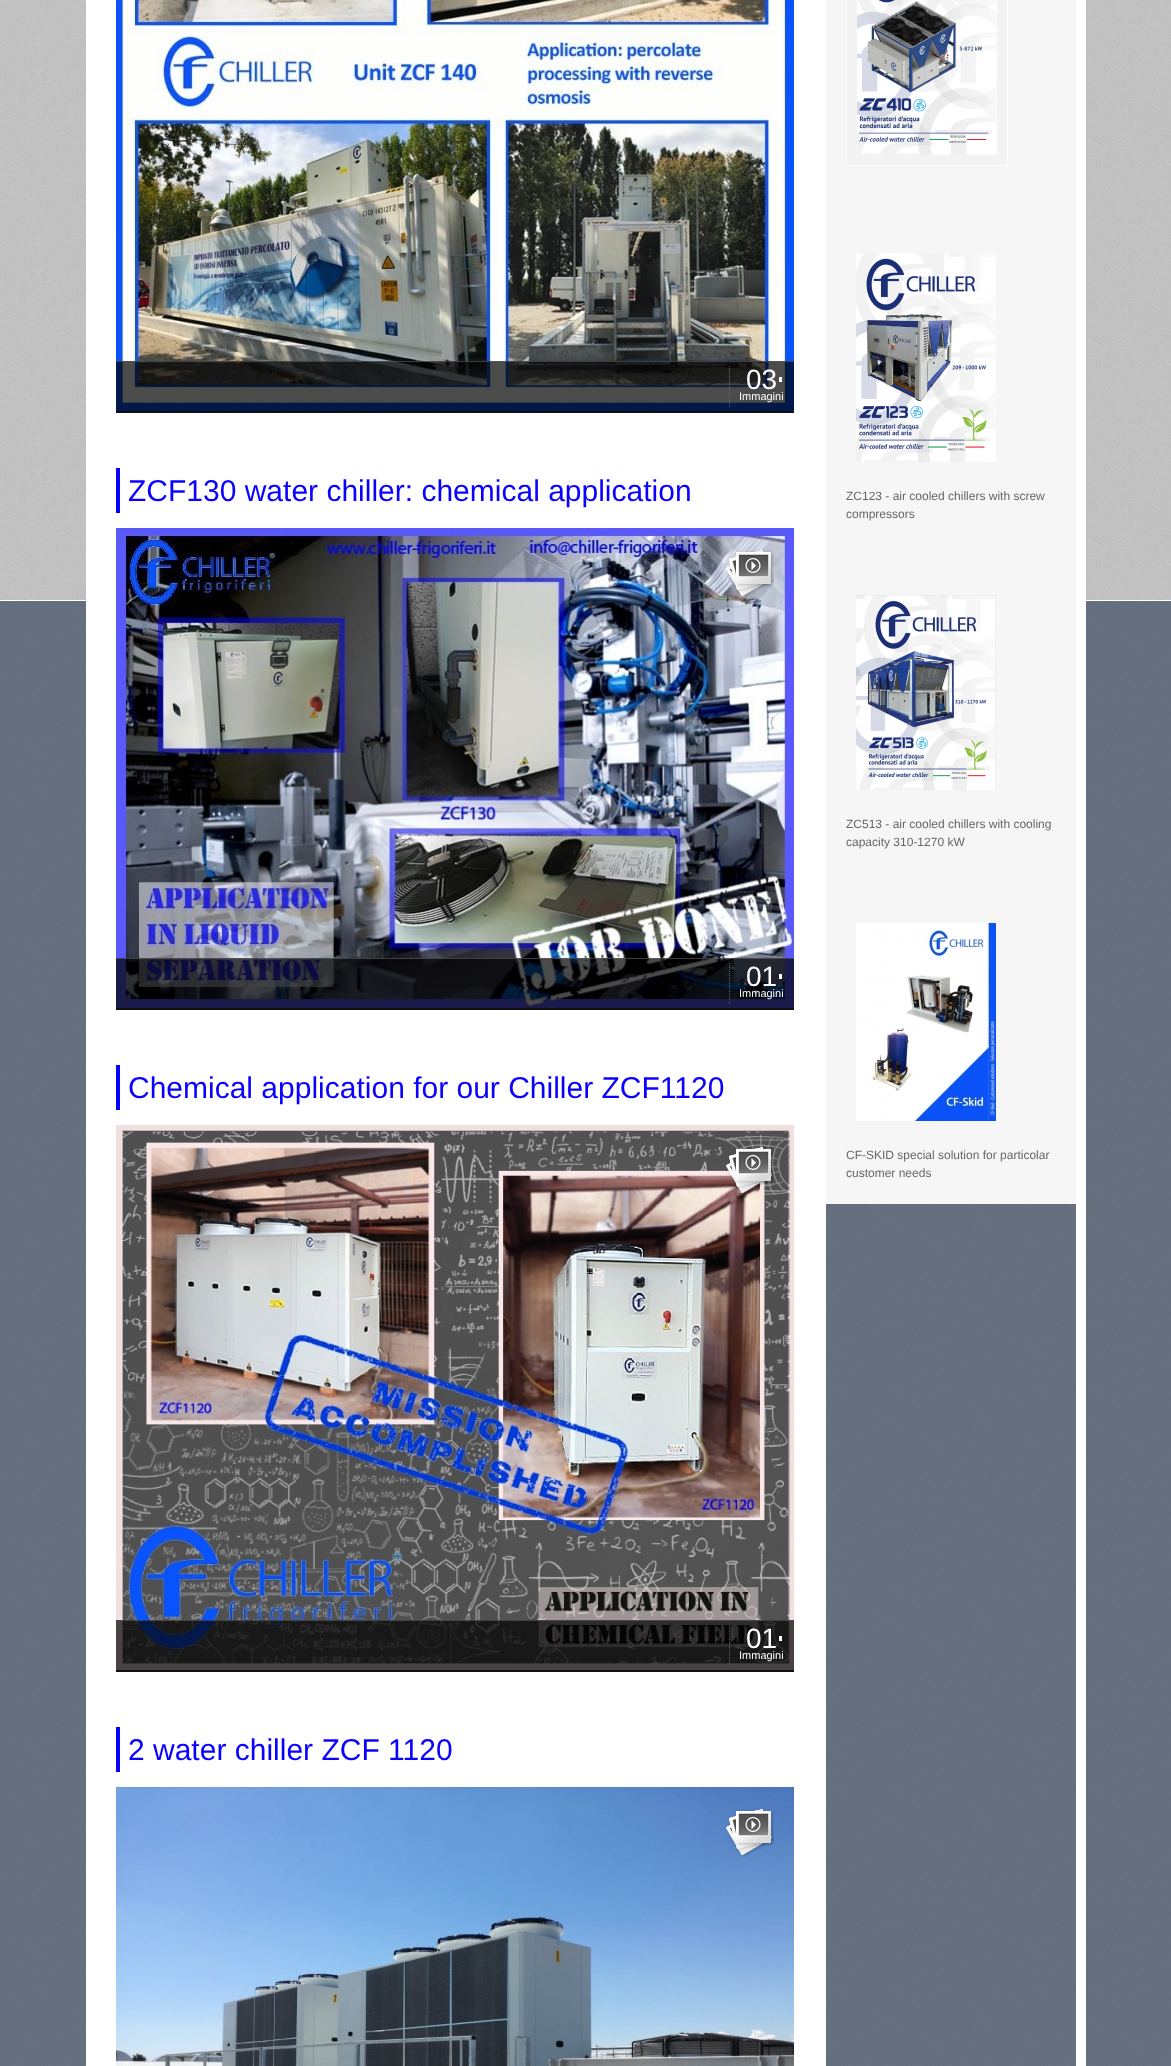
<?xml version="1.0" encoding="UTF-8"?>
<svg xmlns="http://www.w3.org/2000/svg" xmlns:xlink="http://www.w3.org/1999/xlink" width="1171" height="2066">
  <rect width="100%" height="100%" fill="#ffffff" />
  <image x="0" y="0" width="1171" height="2066" xlink:href="image1.png" />
  <rect y="600" width="1171" height="1" fill="#ffffff" />
  <rect y="601" width="1171" height="1465" fill="#0b1e39" fill-opacity="0.5" />
  <path d="M 86 -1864 h 1000 v 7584 c 0 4 -4 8 -8 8 h -984 c -4 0 -8 -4 -8 -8 z m 10 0 h 980 v 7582 h -980 z" fill="#ffffff" fill-rule="evenodd" />
  <rect x="96" width="730" height="2066" fill="#ffffff" />
  <rect x="116" y="411" width="678" height="2" fill="#333333" />
  <image x="116" y="0" width="678" height="411" xlink:href="image2.png" />
  <rect x="116" y="361" width="678" height="52" fill="#000000" fill-opacity="0.7" />
  <rect x="116" y="361" width="678" height="1" fill="#555555" fill-opacity="0.7" />
  <path d="M 729.5 366 v 42" fill="none" stroke="#666666" stroke-dasharray="1 1" />
  <rect x="779" y="377" width="3" height="5" fill="#ffffff" />
  <rect x="116" y="468" width="4" height="45" fill="#0900ff" />
  <image x="116" y="528" width="678" height="480" xlink:href="image4.png" />
  <image x="725" y="549" width="49" height="49" xlink:href="image3.png" />
  <rect x="116" y="1008" width="678" height="2" fill="#333333" />
  <rect x="116" y="958" width="678" height="52" fill="#000000" fill-opacity="0.7" />
  <rect x="116" y="958" width="678" height="1" fill="#555555" fill-opacity="0.7" />
  <path d="M 729.5 963 v 42" fill="none" stroke="#666666" stroke-dasharray="1 1" />
  <rect x="779" y="974" width="3" height="5" fill="#ffffff" />
  <rect x="116" y="1065" width="4" height="45" fill="#0900ff" />
  <image x="116" y="1125" width="678" height="545" xlink:href="image6.png" />
  <image x="726" y="1147" width="48" height="47" xlink:href="image5.png" />
  <rect x="116" y="1670" width="678" height="2" fill="#333333" />
  <rect x="116" y="1620" width="678" height="52" fill="#000000" fill-opacity="0.7" />
  <rect x="116" y="1620" width="678" height="1" fill="#555555" fill-opacity="0.7" />
  <path d="M 729.5 1625 v 42" fill="none" stroke="#666666" stroke-dasharray="1 1" />
  <rect x="779" y="1636" width="3" height="5" fill="#ffffff" />
  <rect x="116" y="1727" width="4" height="45" fill="#0900ff" />
  <image x="116" y="1787" width="678" height="279" xlink:href="image7.png" />
  <image x="725" y="1808" width="49" height="49" xlink:href="image8.png" />
  <rect x="826" width="250" height="1204" fill="#f6f6f6" />
  <rect x="846.5" y="-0.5" width="161" height="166" fill="#f3f3f3" stroke="#ffffff" />
  <image x="857" y="0" width="140" height="155" xlink:href="image9.png" />
  <image x="856" y="253" width="140" height="209" xlink:href="image10.png" />
  <image x="856" y="595" width="140" height="195" xlink:href="image11.png" />
  <image x="856" y="923" width="140" height="198" xlink:href="image12.png" />
  <text x="746" y="389" style="font-family: Liberation Sans; font-size: 28px; fill: #ffffff">03</text>
  <text x="739" y="400" style="font-family: Liberation Sans; font-size: 11px; fill: #ffffff">Immagini</text>
  <text x="128" y="501" style="font-family: Liberation Sans; font-size: 30px; fill: #0900ff">ZCF130 water chiller: chemical application</text>
  <text x="746" y="986" style="font-family: Liberation Sans; font-size: 28px; fill: #ffffff">01</text>
  <text x="739" y="997" style="font-family: Liberation Sans; font-size: 11px; fill: #ffffff">Immagini</text>
  <text x="128" y="1098" style="font-family: Liberation Sans; font-size: 30px; fill: #0900ff">Chemical application for our Chiller ZCF1120</text>
  <text x="746" y="1648" style="font-family: Liberation Sans; font-size: 28px; fill: #ffffff">01</text>
  <text x="739" y="1659" style="font-family: Liberation Sans; font-size: 11px; fill: #ffffff">Immagini</text>
  <text x="128" y="1760" style="font-family: Liberation Sans; font-size: 30px; fill: #0900ff">2 water chiller ZCF 1120</text>
  <text x="846" y="500" style="font-family: Liberation Sans; font-size: 12px; fill: #666666">ZC123 - air cooled chillers with screw</text>
  <text x="846" y="518" style="font-family: Liberation Sans; font-size: 12px; fill: #666666">compressors</text>
  <text x="846" y="828" style="font-family: Liberation Sans; font-size: 12px; fill: #666666">ZC513 - air cooled chillers with cooling</text>
  <text x="846" y="846" style="font-family: Liberation Sans; font-size: 12px; fill: #666666">capacity 310-1270 kW</text>
  <text x="846" y="1159" style="font-family: Liberation Sans; font-size: 12px; fill: #666666">CF-SKID special solution for particolar</text>
  <text x="846" y="1177" style="font-family: Liberation Sans; font-size: 12px; fill: #666666">customer needs</text>
</svg>
